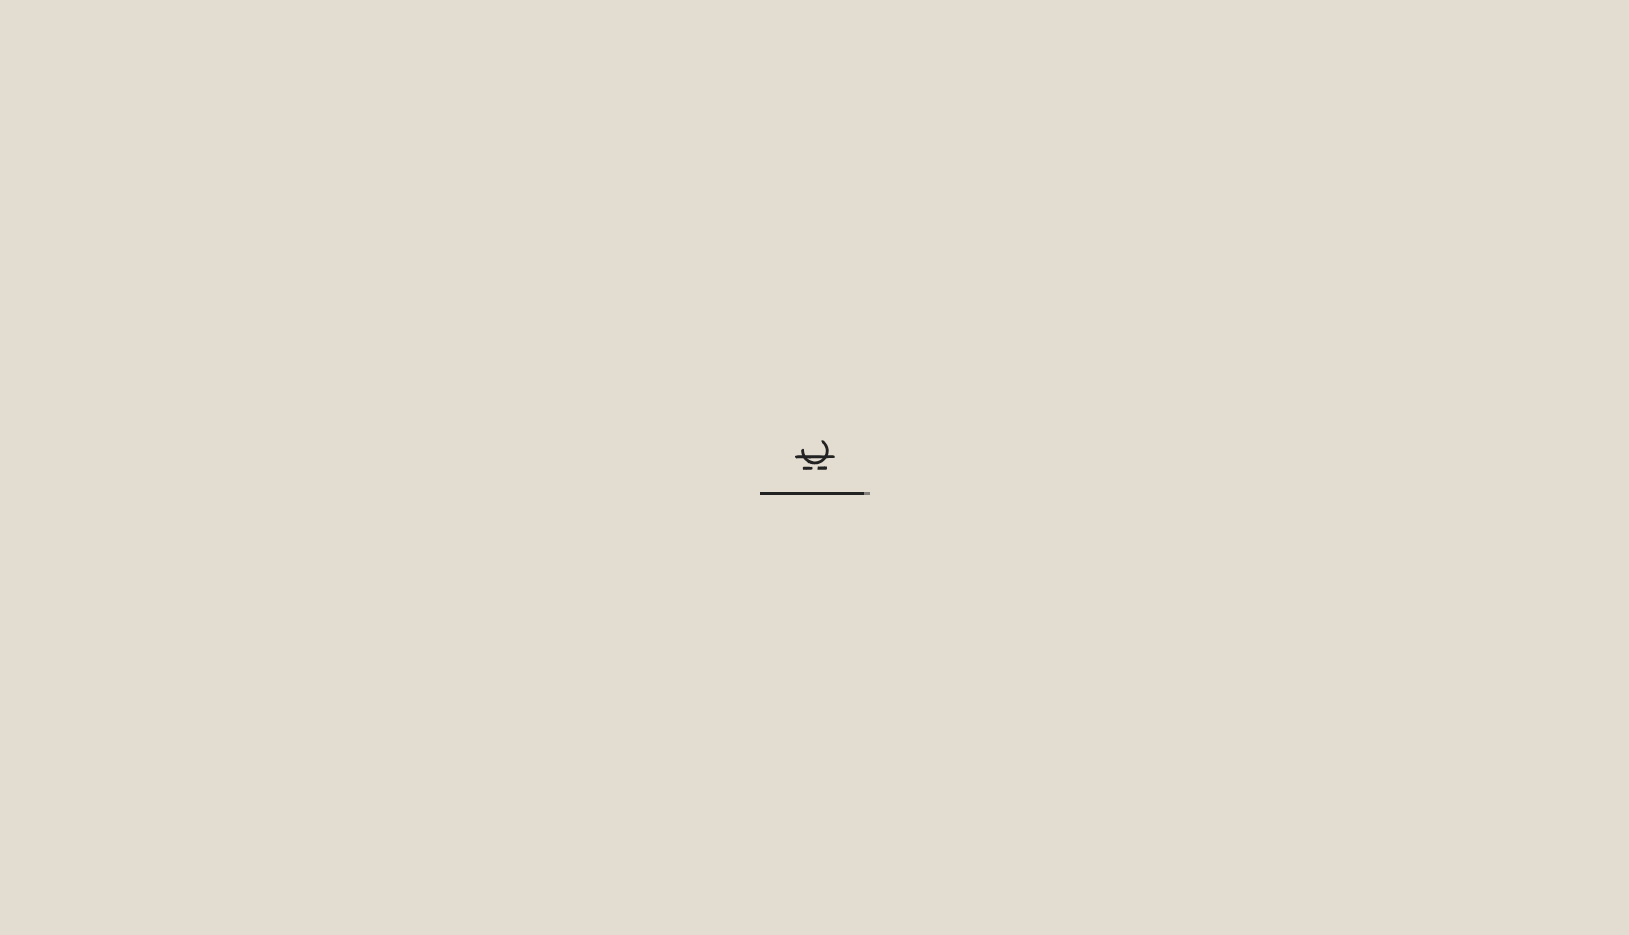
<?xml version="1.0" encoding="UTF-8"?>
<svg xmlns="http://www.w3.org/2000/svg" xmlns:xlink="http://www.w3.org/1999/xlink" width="1629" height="935">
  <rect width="100%" height="100%" fill="#e3dcd1" />
  <image x="795" y="440" width="40" height="30" xlink:href="image1.png" />
  <rect x="864" y="492" width="6" height="3" fill="#837f7a" />
  <rect x="760" y="492" width="104" height="3" fill="#222222" />
</svg>
